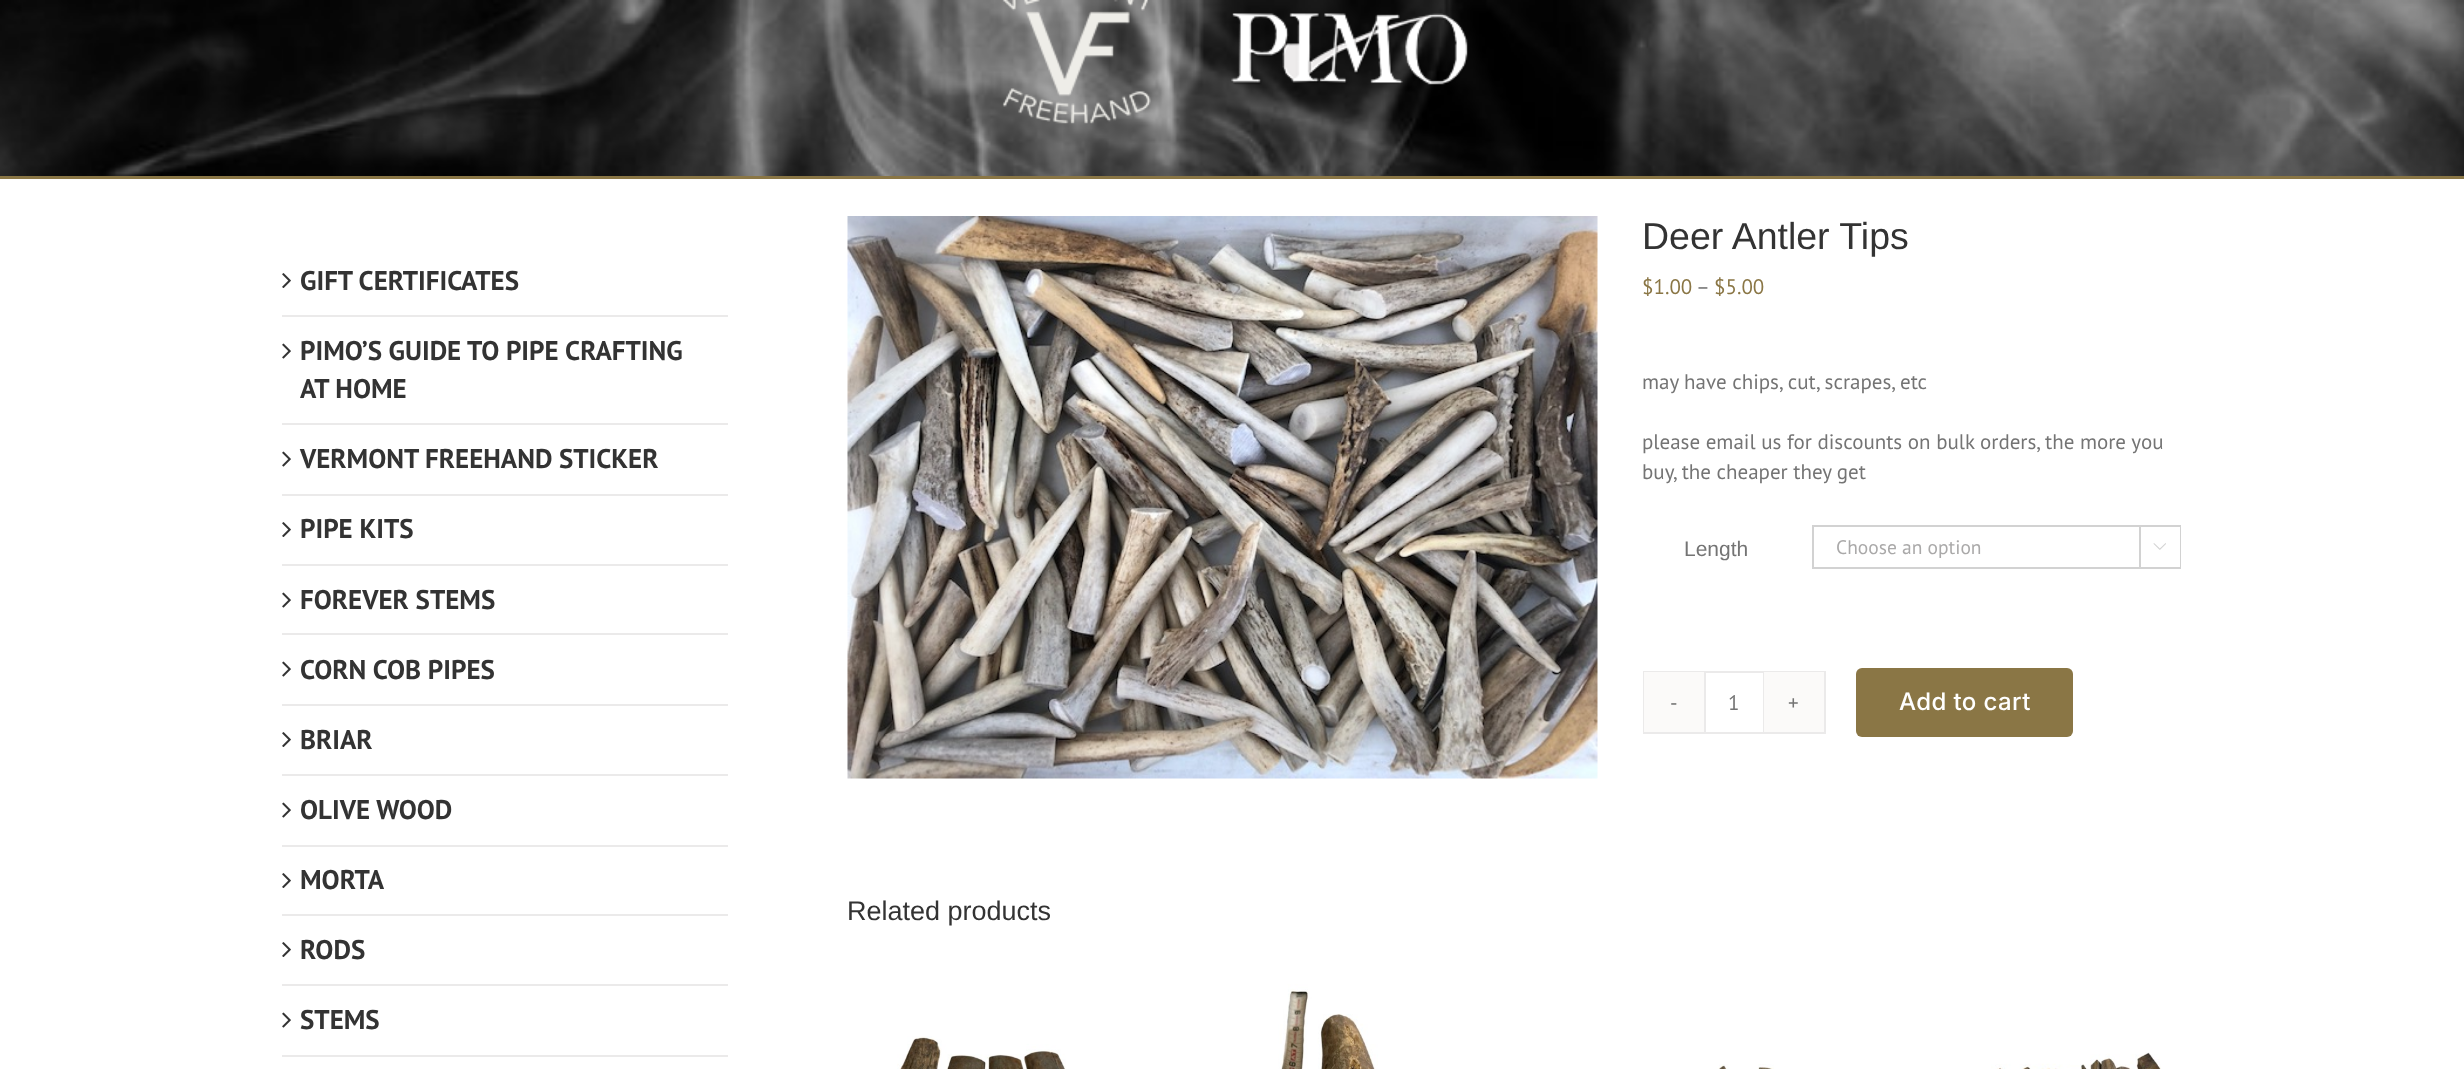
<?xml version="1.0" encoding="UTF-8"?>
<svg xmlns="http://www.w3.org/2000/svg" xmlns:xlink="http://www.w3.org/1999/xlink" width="2464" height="1069">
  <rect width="100%" height="100%" fill="#ffffff" />
  <image x="0" y="0" width="2464" height="176" xlink:href="image1.png" />
  <rect y="176" width="2464" height="3" fill="#8a7645" />
  <image x="1002" y="0" width="466" height="124" xlink:href="image2.png" />
  <rect x="282" y="315" width="446" height="2" fill="#ebeaea" />
  <image x="282" y="273" width="9" height="15" xlink:href="image3.png" />
  <rect x="282" y="423" width="446" height="2" fill="#ebeaea" />
  <image x="282" y="343" width="9" height="16" xlink:href="image4.png" />
  <rect x="282" y="494" width="446" height="2" fill="#ebeaea" />
  <image x="282" y="451" width="9" height="16" xlink:href="image4.png" />
  <rect x="282" y="564" width="446" height="2" fill="#ebeaea" />
  <image x="282" y="522" width="9" height="15" xlink:href="image3.png" />
  <rect x="282" y="633" width="446" height="2" fill="#ebeaea" />
  <image x="282" y="592" width="9" height="16" xlink:href="image4.png" />
  <rect x="282" y="704" width="446" height="2" fill="#ebeaea" />
  <image x="282" y="661" width="9" height="16" xlink:href="image4.png" />
  <rect x="282" y="774" width="446" height="2" fill="#ebeaea" />
  <image x="282" y="732" width="9" height="15" xlink:href="image3.png" />
  <rect x="282" y="845" width="446" height="2" fill="#ebeaea" />
  <image x="282" y="802" width="9" height="16" xlink:href="image4.png" />
  <rect x="282" y="914" width="446" height="2" fill="#ebeaea" />
  <image x="282" y="873" width="9" height="15" xlink:href="image3.png" />
  <rect x="282" y="984" width="446" height="2" fill="#ebeaea" />
  <image x="282" y="942" width="9" height="15" xlink:href="image3.png" />
  <rect x="282" y="1055" width="446" height="2" fill="#ebeaea" />
  <image x="282" y="1012" width="9" height="16" xlink:href="image4.png" />
  <image x="847" y="216" width="751" height="563" xlink:href="image5.png" />
  <rect x="1813" y="526" width="367" height="42" fill="none" stroke="#d2d2d2" stroke-width="2" />
  <rect x="2179" y="527" width="1" height="40" fill="#ffffff" />
  <rect x="2139" y="527" width="2" height="40" fill="#d2d2d2" />
  <image x="2153" y="543" width="13" height="7" xlink:href="image6.png" />
  <rect x="1644" y="672" width="181" height="61" fill="none" stroke="#ebeaea" stroke-width="2" />
  <rect x="1644" y="672" width="60" height="60" fill="#fbfaf9" />
  <rect x="1763" y="672" width="1" height="60" fill="#ebeaea" />
  <rect x="1704" y="672" width="2" height="60" fill="#ebeaea" />
  <rect x="1764" y="672" width="60" height="60" fill="#fbfaf9" />
  <rect x="1856" y="668" width="217" height="69" rx="6" fill="#8a7645" />
  <image x="897" y="1036" width="169" height="33" xlink:href="image7.png" />
  <image x="1188" y="984" width="312" height="85" xlink:href="image8.png" />
  <image x="1718" y="1064" width="56" height="5" xlink:href="image9.png" />
  <image x="1991" y="1052" width="170" height="17" xlink:href="image10.png" />
  <text x="300" y="290" style="font-family: PT Sans; font-size: 27px; font-weight: bold; fill: #333333">GIFT CERTIFICATES</text>
  <text x="300" y="360" style="font-family: PT Sans; font-size: 27px; font-weight: bold; fill: #333333">PIMO’S GUIDE TO PIPE CRAFTING</text>
  <text x="300" y="398" style="font-family: PT Sans; font-size: 27px; font-weight: bold; fill: #333333">AT HOME</text>
  <text x="300" y="468" style="font-family: PT Sans; font-size: 27px; font-weight: bold; fill: #333333">VERMONT FREEHAND STICKER</text>
  <text x="300" y="538" style="font-family: PT Sans; font-size: 27px; font-weight: bold; fill: #333333">PIPE KITS</text>
  <text x="300" y="609" style="font-family: PT Sans; font-size: 27px; font-weight: bold; fill: #333333">FOREVER STEMS</text>
  <text x="300" y="679" style="font-family: PT Sans; font-size: 27px; font-weight: bold; fill: #333333">CORN COB PIPES</text>
  <text x="300" y="749" style="font-family: PT Sans; font-size: 27px; font-weight: bold; fill: #333333">BRIAR</text>
  <text x="300" y="819" style="font-family: PT Sans; font-size: 27px; font-weight: bold; fill: #333333">OLIVE WOOD</text>
  <text x="300" y="889" style="font-family: PT Sans; font-size: 27px; font-weight: bold; fill: #333333">MORTA</text>
  <text x="300" y="959" style="font-family: PT Sans; font-size: 27px; font-weight: bold; fill: #333333">RODS</text>
  <text x="300" y="1029" style="font-family: PT Sans; font-size: 27px; font-weight: bold; fill: #333333">STEMS</text>
  <text x="1642" y="249" style="font-family: Liberation Sans; font-size: 37.5px; fill: #333333">Deer Antler Tips</text>
  <text x="1642" y="294" style="font-family: PT Sans; font-size: 21px; fill: #8a7645">$1.00</text>
  <text x="1696" y="294" style="font-family: PT Sans; font-size: 21px; fill: #747474">–</text>
  <text x="1714" y="294" style="font-family: PT Sans; font-size: 21px; fill: #8a7645">$5.00</text>
  <text x="1642" y="389" style="font-family: PT Sans; font-size: 21px; fill: #747474">may have chips, cut, scrapes, etc</text>
  <text x="1642" y="449" style="font-family: PT Sans; font-size: 21px; fill: #747474">please email us for discounts on bulk orders, the more you</text>
  <text x="1642" y="479" style="font-family: PT Sans; font-size: 21px; fill: #747474">buy, the cheaper they get</text>
  <text x="1684" y="556" style="font-family: Liberation Sans; font-size: 21px; fill: #747474">Length</text>
  <text x="1836" y="554" style="font-family: PT Sans; font-size: 19.5px; fill: #aaa9a9">Choose an option</text>
  <text x="1670" y="710" style="font-family: PT Sans; font-size: 21px; fill: #747474">-</text>
  <text x="1728" y="710" style="font-family: PT Sans; font-size: 21px; fill: #747474">1</text>
  <text x="1788" y="710" style="font-family: PT Sans; font-size: 21px; fill: #747474">+</text>
  <text x="1899" y="710" style="font-family: Inter; font-size: 24px; font-weight: 500; letter-spacing: 0.4px; fill: #ffffff">Add to cart</text>
  <text x="847" y="920" style="font-family: Liberation Sans; font-size: 27px; fill: #333333">Related products</text>
</svg>
